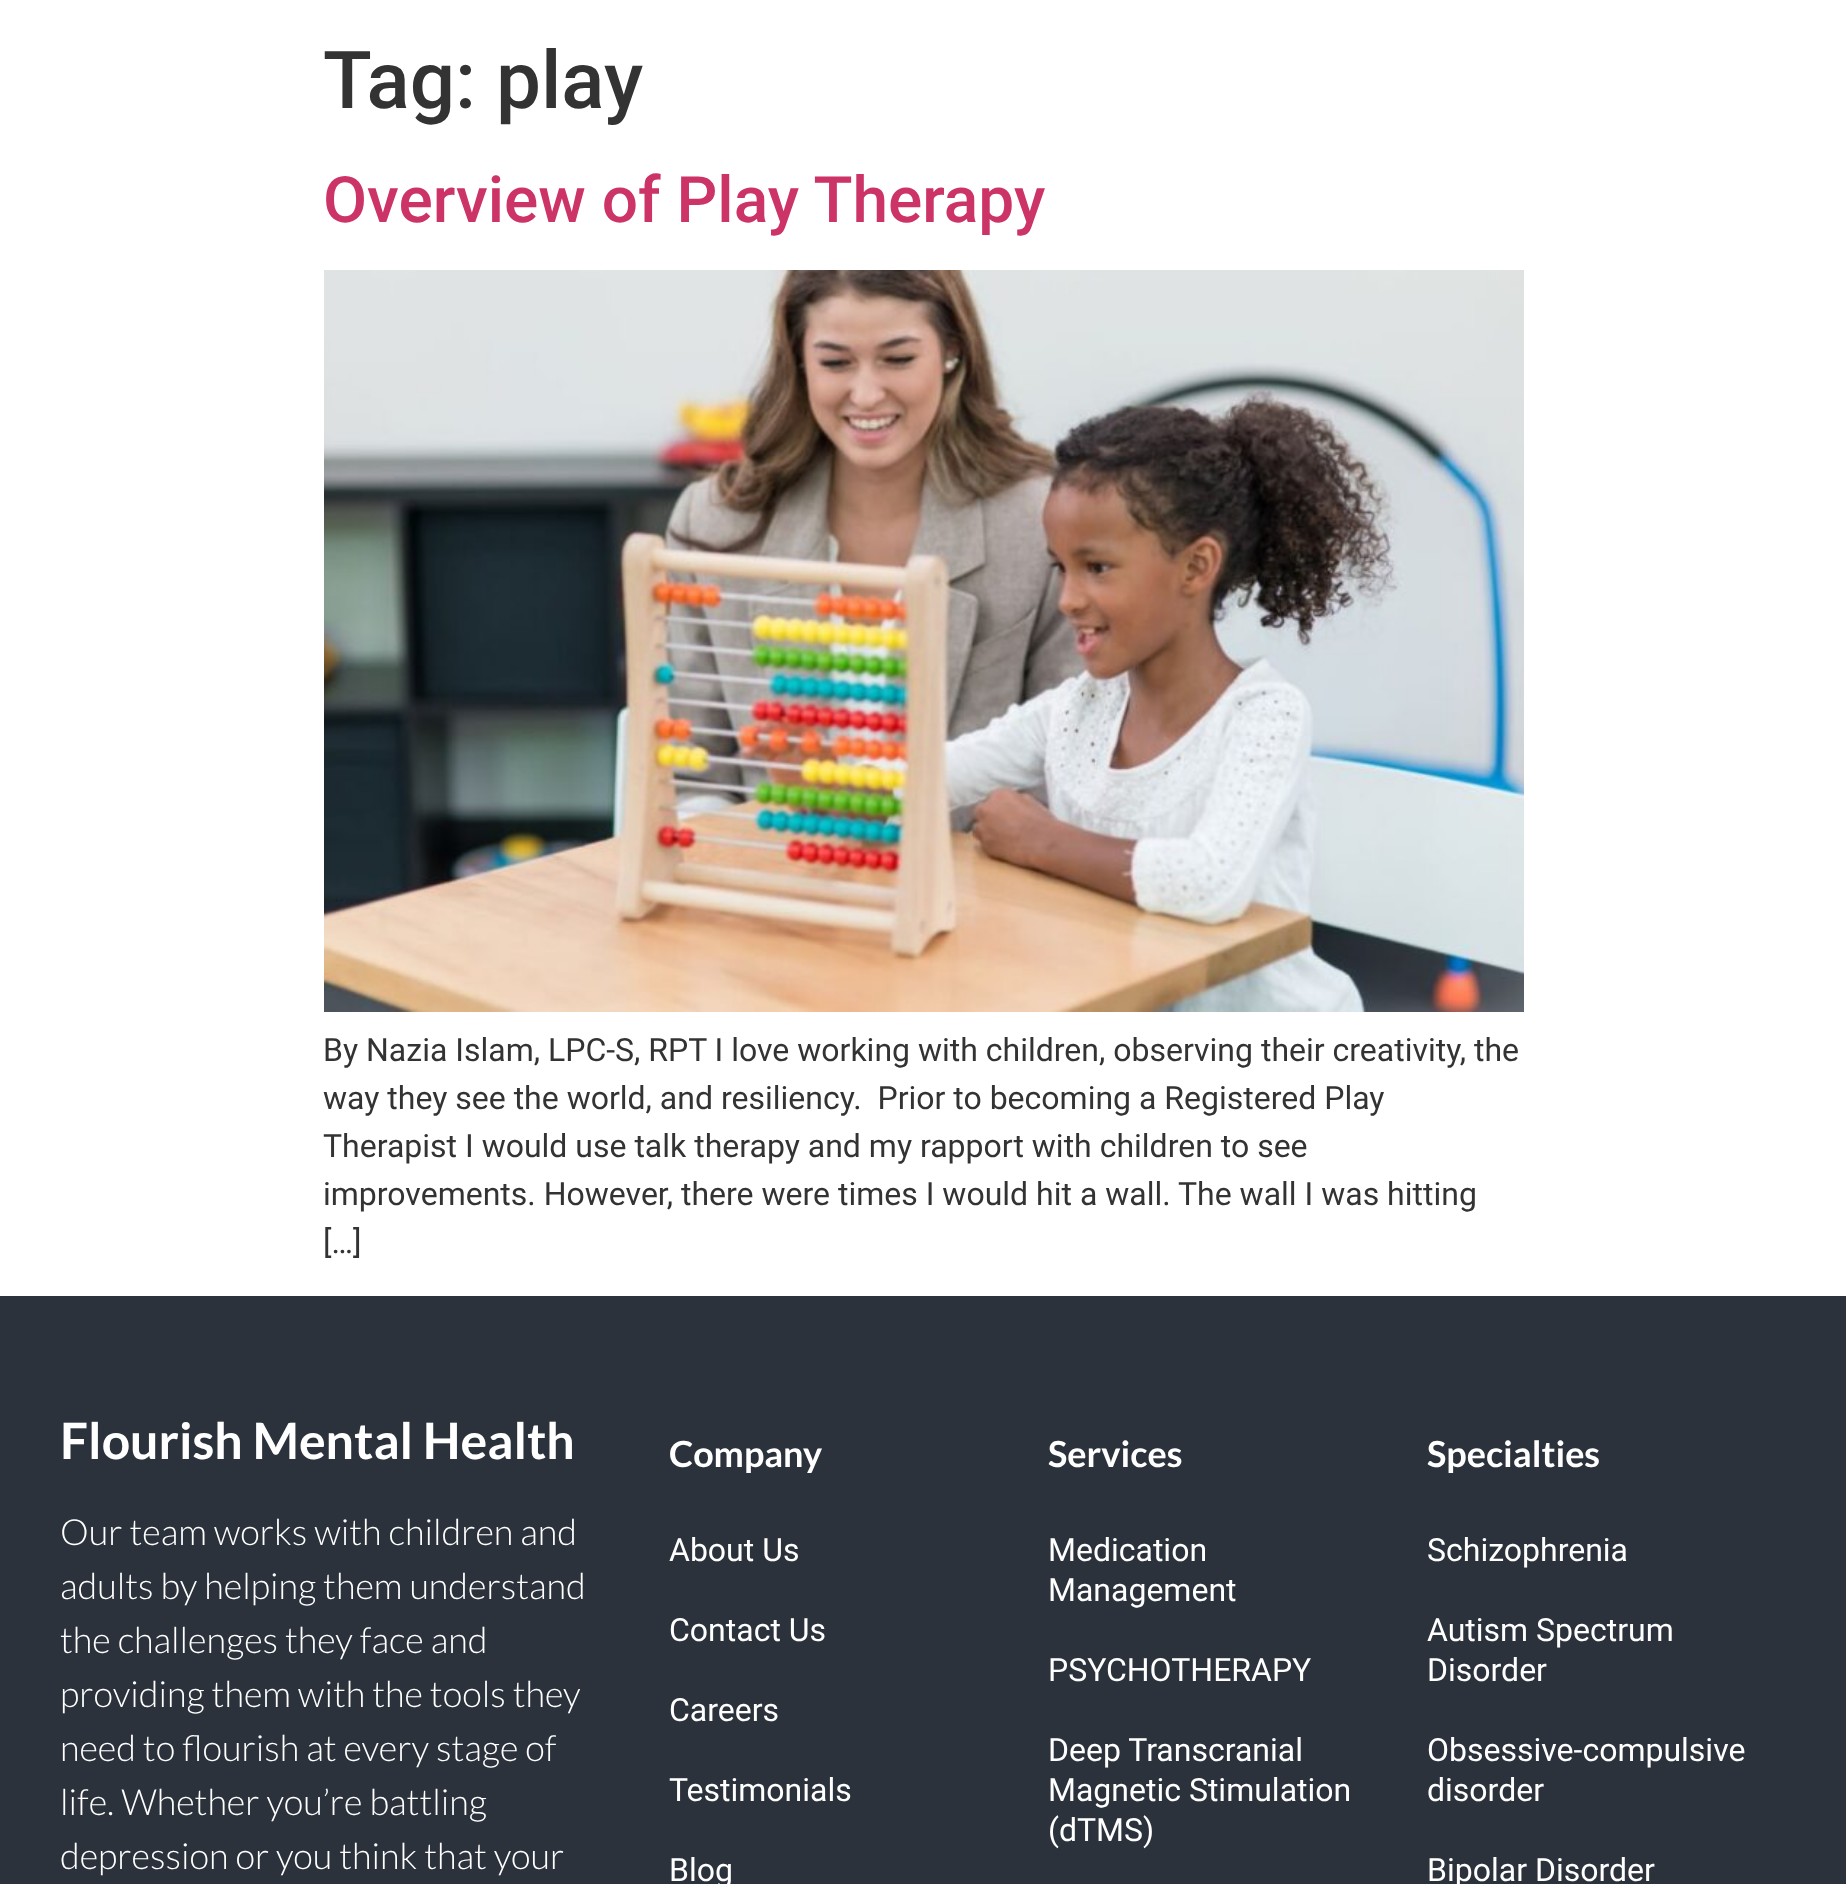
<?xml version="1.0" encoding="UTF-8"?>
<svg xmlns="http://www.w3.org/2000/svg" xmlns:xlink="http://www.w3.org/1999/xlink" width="1846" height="1884">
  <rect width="100%" height="100%" fill="#ffffff" />
  <image x="324" y="270" width="1200" height="742" xlink:href="image1.png" />
  <rect y="1296" width="1846" height="588" fill="#2b323c" />
  <text x="323" y="108" style="font-family: Roboto; font-size: 80px; font-weight: 500; fill: #333333">Tag: play</text>
  <text x="323" y="222" style="font-family: Roboto; font-size: 64px; font-weight: 500; fill: #cc3366">Overview of Play Therapy</text>
  <text x="323" y="1061" style="font-family: Roboto; font-size: 32px; fill: #333333">By Nazia Islam, LPC-S, RPT I love working with children, observing their creativity, the</text>
  <text x="323" y="1109" style="font-family: Roboto; font-size: 32px; fill: #333333" xml:space="preserve">way they see the world, and resiliency.  Prior to becoming a Registered Play</text>
  <text x="323" y="1157" style="font-family: Roboto; font-size: 32px; fill: #333333">Therapist I would use talk therapy and my rapport with children to see</text>
  <text x="323" y="1205" style="font-family: Roboto; font-size: 32px; fill: #333333">improvements. However, there were times I would hit a wall. The wall I was hitting</text>
  <text x="323" y="1253" style="font-family: Roboto; font-size: 32px; fill: #333333">[…]</text>
  <text x="60" y="1459" style="font-family: Lato; font-size: 50px; font-weight: bold; fill: #ffffff">Flourish Mental Health</text>
  <text x="60" y="1545" style="font-family: Lato; font-size: 36px; font-weight: 300; fill: #ffffff">Our team works with children and</text>
  <text x="60" y="1599" style="font-family: Lato; font-size: 36px; font-weight: 300; fill: #ffffff">adults by helping them understand</text>
  <text x="60" y="1653" style="font-family: Lato; font-size: 36px; font-weight: 300; fill: #ffffff">the challenges they face and</text>
  <text x="60" y="1707" style="font-family: Lato; font-size: 36px; font-weight: 300; fill: #ffffff">providing them with the tools they</text>
  <text x="60" y="1761" style="font-family: Lato; font-size: 36px; font-weight: 300; fill: #ffffff">need to flourish at every stage of</text>
  <text x="60" y="1815" style="font-family: Lato; font-size: 36px; font-weight: 300; fill: #ffffff">life. Whether you’re battling</text>
  <text x="60" y="1869" style="font-family: Lato; font-size: 36px; font-weight: 300; fill: #ffffff">depression or you think that your</text>
  <text x="669" y="1467" style="font-family: Lato; font-size: 36px; font-weight: bold; fill: #ffffff">Company</text>
  <text x="669" y="1561" style="font-family: Roboto; font-size: 32px; fill: #ffffff">About Us</text>
  <text x="669" y="1641" style="font-family: Roboto; font-size: 32px; fill: #ffffff">Contact Us</text>
  <text x="669" y="1721" style="font-family: Roboto; font-size: 32px; fill: #ffffff">Careers</text>
  <text x="669" y="1801" style="font-family: Roboto; font-size: 32px; fill: #ffffff">Testimonials</text>
  <text x="669" y="1881" style="font-family: Roboto; font-size: 32px; fill: #ffffff">Blog</text>
  <text x="1048" y="1467" style="font-family: Lato; font-size: 36px; font-weight: bold; fill: #ffffff">Services</text>
  <text x="1048" y="1561" style="font-family: Roboto; font-size: 32px; fill: #ffffff">Medication</text>
  <text x="1048" y="1601" style="font-family: Roboto; font-size: 32px; fill: #ffffff">Management</text>
  <text x="1048" y="1681" style="font-family: Roboto; font-size: 32px; fill: #ffffff">PSYCHOTHERAPY</text>
  <text x="1048" y="1761" style="font-family: Roboto; font-size: 32px; fill: #ffffff">Deep Transcranial</text>
  <text x="1048" y="1801" style="font-family: Roboto; font-size: 32px; fill: #ffffff">Magnetic Stimulation</text>
  <text x="1048" y="1841" style="font-family: Roboto; font-size: 32px; fill: #ffffff">(dTMS)</text>
  <text x="1427" y="1467" style="font-family: Lato; font-size: 36px; font-weight: bold; fill: #ffffff">Specialties</text>
  <text x="1427" y="1561" style="font-family: Roboto; font-size: 32px; fill: #ffffff">Schizophrenia</text>
  <text x="1427" y="1641" style="font-family: Roboto; font-size: 32px; fill: #ffffff">Autism Spectrum</text>
  <text x="1427" y="1681" style="font-family: Roboto; font-size: 32px; fill: #ffffff">Disorder</text>
  <text x="1427" y="1761" style="font-family: Roboto; font-size: 32px; fill: #ffffff">Obsessive-compulsive</text>
  <text x="1427" y="1801" style="font-family: Roboto; font-size: 32px; fill: #ffffff">disorder</text>
  <text x="1427" y="1881" style="font-family: Roboto; font-size: 32px; fill: #ffffff">Bipolar Disorder</text>
</svg>
